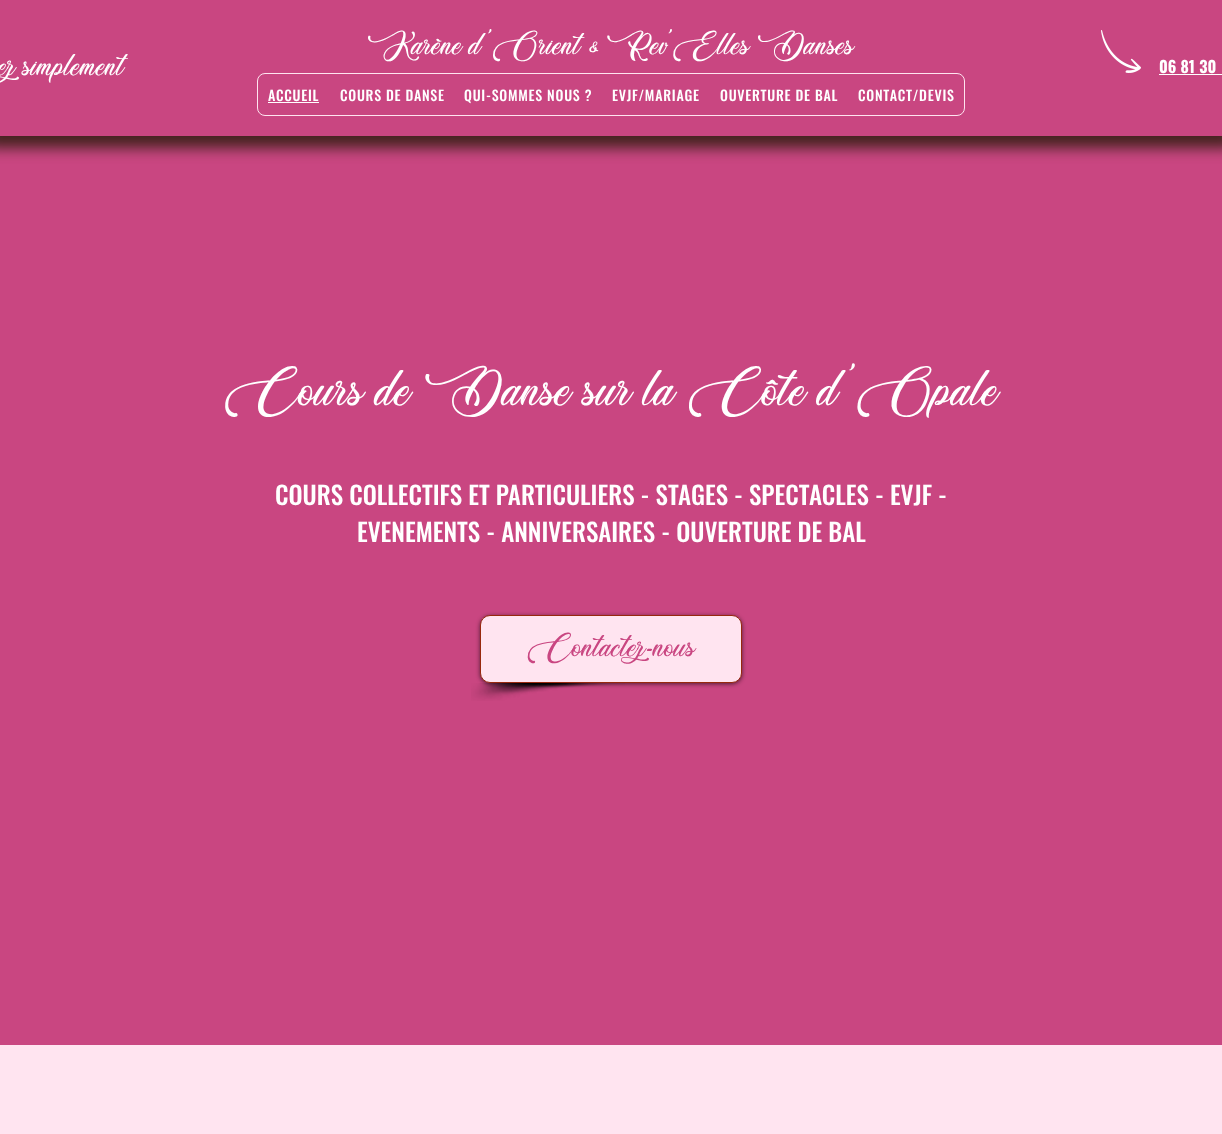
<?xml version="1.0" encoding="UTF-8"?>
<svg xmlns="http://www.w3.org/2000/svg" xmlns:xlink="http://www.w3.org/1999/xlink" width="1222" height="1134">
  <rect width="100%" height="100%" fill="#c94681" />
  <rect x="-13" y="-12" width="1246" height="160" fill="#301d10" fill-opacity="0.86" filter="blur(7px)" />
  <rect width="1222" height="136" fill="#c94681" />
  <image x="1101" y="30" width="40" height="43" xlink:href="image1.png" />
  <rect x="1159" y="74" width="63" height="1" fill="#ffffff" />
  <rect x="257.5" y="73.5" width="707" height="42" rx="7.5" fill="none" stroke="#ffe4f0" />
  <rect x="268" y="102" width="51" height="1" fill="#ffffff" />
  <image x="471" y="683" width="154" height="18" xlink:href="image2.png" />
  <rect x="480" y="616" width="262" height="68" rx="10" fill="#000000" fill-opacity="0.6" filter="blur(2px)" />
  <rect x="480.5" y="615.5" width="261" height="67" rx="9.5" fill="#ffe4f0" stroke="#98280d" />
  <rect y="1045" width="1222" height="89" fill="#ffe4f0" />
  <text x="-2" y="75" style="font-family: 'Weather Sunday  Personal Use'; font-size: 30px; fill: #ffffff">ez simplement</text>
  <text x="367" y="54" style="font-family: 'Weather Sunday  Personal Use'; font-size: 30px; fill: #ffffff">Karène d'Orient &amp; Rev'Elles Danses</text>
  <text x="1159" y="73" style="font-family: Oswald; font-size: 16px; font-weight: bold; fill: #ffffff">06 81 30</text>
  <text x="268" y="101" style="font-family: Oswald; font-size: 14px; font-weight: 500; letter-spacing: 0.75px; fill: #ffffff">ACCUEIL</text>
  <text x="340" y="101" style="font-family: Oswald; font-size: 14px; font-weight: 500; letter-spacing: 0.75px; fill: #ffffff">COURS DE DANSE</text>
  <text x="464" y="101" style="font-family: Oswald; font-size: 14px; font-weight: 500; letter-spacing: 0.75px; fill: #ffffff">QUI-SOMMES NOUS ?</text>
  <text x="612" y="101" style="font-family: Oswald; font-size: 14px; font-weight: 500; letter-spacing: 0.75px; fill: #ffffff">EVJF/MARIAGE</text>
  <text x="720" y="101" style="font-family: Oswald; font-size: 14px; font-weight: 500; letter-spacing: 0.75px; fill: #ffffff">OUVERTURE DE BAL</text>
  <text x="858" y="101" style="font-family: Oswald; font-size: 14px; font-weight: 500; letter-spacing: 0.75px; fill: #ffffff">CONTACT/DEVIS</text>
  <text x="224" y="405" style="font-family: 'Weather Sunday  Personal Use'; font-size: 50px; fill: #ffffff">Cours de Danse sur la Côte d'Opale</text>
  <text x="275" y="505" style="font-family: Oswald; font-size: 25px; font-weight: 500; fill: #ffffff">COURS COLLECTIFS ET PARTICULIERS - STAGES - SPECTACLES - EVJF -</text>
  <text x="357" y="542" style="font-family: Oswald; font-size: 25px; font-weight: 500; fill: #ffffff">EVENEMENTS - ANNIVERSAIRES - OUVERTURE DE BAL</text>
  <text x="527" y="656" style="font-family: 'Weather Sunday  Personal Use'; font-size: 30px; fill: #c94681">Contactez-nous</text>
</svg>
